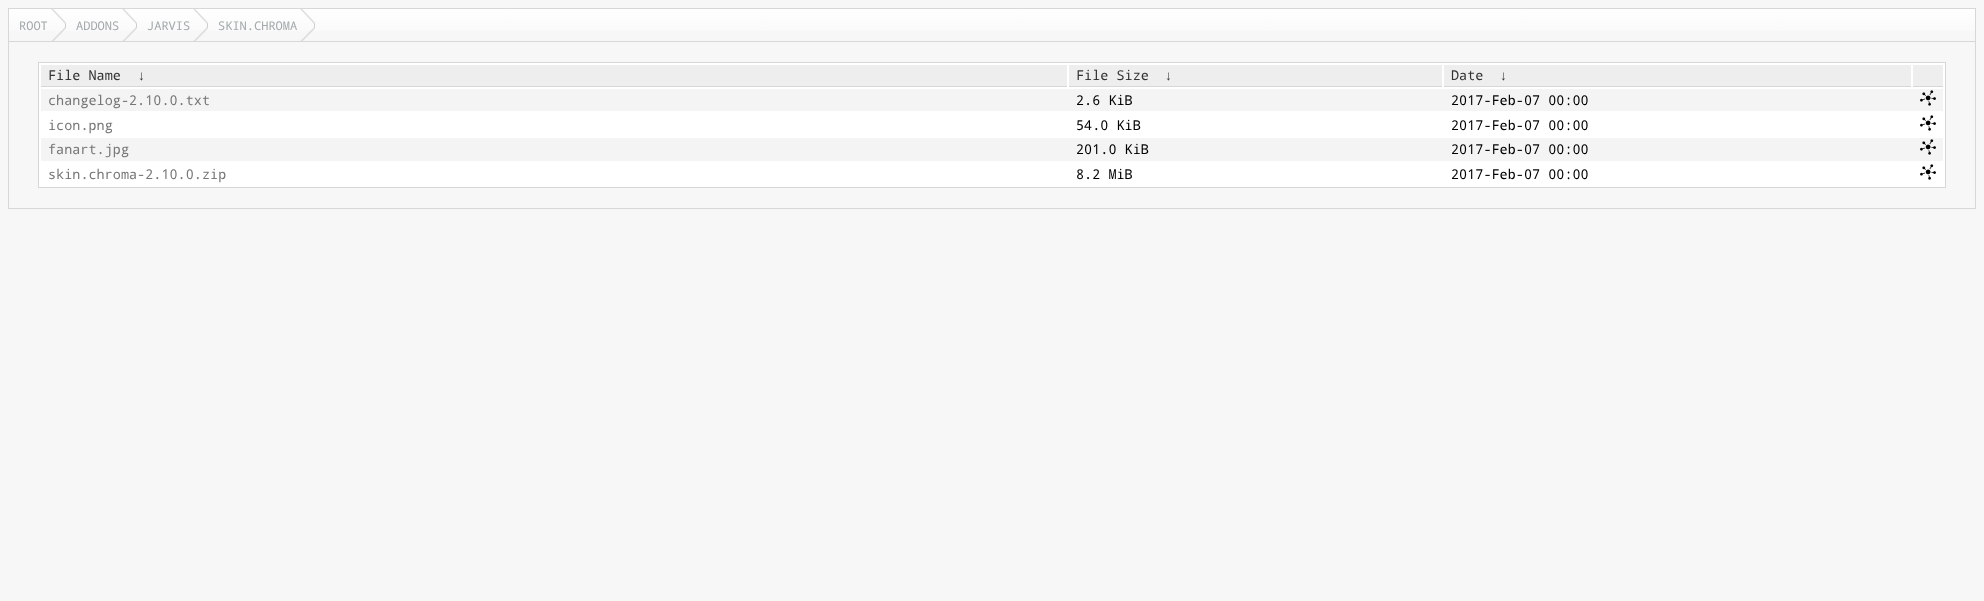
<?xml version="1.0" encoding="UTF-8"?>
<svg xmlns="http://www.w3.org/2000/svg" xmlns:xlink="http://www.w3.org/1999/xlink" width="1984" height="601">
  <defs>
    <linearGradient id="g1" gradientUnits="userSpaceOnUse" x1="992" y1="9" x2="992" y2="41"><stop offset="0" stop-color="#ffffff" /><stop offset="1" stop-color="#f7f7f7" /></linearGradient>
  </defs>
  <rect width="100%" height="100%" fill="#f7f7f7" />
  <rect x="8.5" y="8.5" width="1967" height="200" fill="none" stroke="#d9d6d6" />
  <rect x="9" y="9" width="1966" height="22" fill="url(#g1)" />
  <rect x="9" y="41" width="1966" height="1" fill="#d9d6d6" />
  <image x="51" y="9" width="15" height="32" xlink:href="image1.png" />
  <image x="122" y="9" width="15" height="32" xlink:href="image1.png" />
  <image x="193" y="9" width="15" height="32" xlink:href="image1.png" />
  <image x="300" y="9" width="15" height="32" xlink:href="image1.png" />
  <rect x="38.5" y="62.5" width="1907" height="125" fill="#ffffff" stroke="#d9d6d6" />
  <rect x="41" y="65" width="1026" height="21" fill="#eeeeee" />
  <rect x="41" y="86" width="1026" height="1" fill="#d9d6d6" />
  <rect x="1069" y="65" width="373" height="21" fill="#eeeeee" />
  <rect x="1069" y="86" width="373" height="1" fill="#d9d6d6" />
  <rect x="1444" y="65" width="467" height="21" fill="#eeeeee" />
  <rect x="1444" y="86" width="467" height="1" fill="#d9d6d6" />
  <rect x="1913" y="65" width="30" height="21" fill="#eeeeee" />
  <rect x="1913" y="86" width="30" height="1" fill="#d9d6d6" />
  <rect x="41" y="89" width="1902" height="22" fill="#f4f4f4" />
  <image x="1920" y="90" width="16" height="16" xlink:href="image2.png" />
  <image x="1920" y="115" width="16" height="16" xlink:href="image3.png" />
  <rect x="41" y="138" width="1902" height="23" fill="#f4f4f4" />
  <image x="1920" y="139" width="16" height="16" xlink:href="image2.png" />
  <image x="1920" y="164" width="16" height="16" xlink:href="image3.png" />
  <text x="19" y="30" style="font-family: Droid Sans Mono; font-size: 12px; fill: #a3a9ab">ROOT</text>
  <text x="76" y="30" style="font-family: Droid Sans Mono; font-size: 12px; fill: #a3a9ab">ADDONS</text>
  <text x="147" y="30" style="font-family: Droid Sans Mono; font-size: 12px; fill: #a3a9ab">JARVIS</text>
  <text x="218" y="30" style="font-family: Droid Sans Mono; font-size: 12px; fill: #a3a9ab">SKIN.CHROMA</text>
  <text x="48" y="80" style="font-family: Droid Sans Mono; font-size: 13.5px; fill: #333333">File Name</text>
  <text x="138" y="80" style="font-family: Liberation Serif; font-size: 13.5px; fill: #333333">↓</text>
  <text x="1076" y="80" style="font-family: Droid Sans Mono; font-size: 13.5px; fill: #333333">File Size</text>
  <text x="1165" y="80" style="font-family: Liberation Serif; font-size: 13.5px; fill: #333333">↓</text>
  <text x="1451" y="80" style="font-family: Droid Sans Mono; font-size: 13.5px; fill: #333333">Date</text>
  <text x="1500" y="80" style="font-family: Liberation Serif; font-size: 13.5px; fill: #333333">↓</text>
  <text x="48" y="105" style="font-family: Droid Sans Mono; font-size: 13.5px; fill: #777777">changelog-2.10.0.txt</text>
  <text x="1076" y="105" style="font-family: Droid Sans Mono; font-size: 13.5px; fill: #000000">2.6 KiB</text>
  <text x="1451" y="105" style="font-family: Droid Sans Mono; font-size: 13.5px; fill: #000000">2017-Feb-07 00:00</text>
  <text x="48" y="130" style="font-family: Droid Sans Mono; font-size: 13.5px; fill: #777777">icon.png</text>
  <text x="1076" y="130" style="font-family: Droid Sans Mono; font-size: 13.5px; fill: #000000">54.0 KiB</text>
  <text x="1451" y="130" style="font-family: Droid Sans Mono; font-size: 13.5px; fill: #000000">2017-Feb-07 00:00</text>
  <text x="48" y="154" style="font-family: Droid Sans Mono; font-size: 13.5px; fill: #777777">fanart.jpg</text>
  <text x="1076" y="154" style="font-family: Droid Sans Mono; font-size: 13.5px; fill: #000000">201.0 KiB</text>
  <text x="1451" y="154" style="font-family: Droid Sans Mono; font-size: 13.5px; fill: #000000">2017-Feb-07 00:00</text>
  <text x="48" y="179" style="font-family: Droid Sans Mono; font-size: 13.5px; fill: #777777">skin.chroma-2.10.0.zip</text>
  <text x="1076" y="179" style="font-family: Droid Sans Mono; font-size: 13.5px; fill: #000000">8.2 MiB</text>
  <text x="1451" y="179" style="font-family: Droid Sans Mono; font-size: 13.5px; fill: #000000">2017-Feb-07 00:00</text>
</svg>
